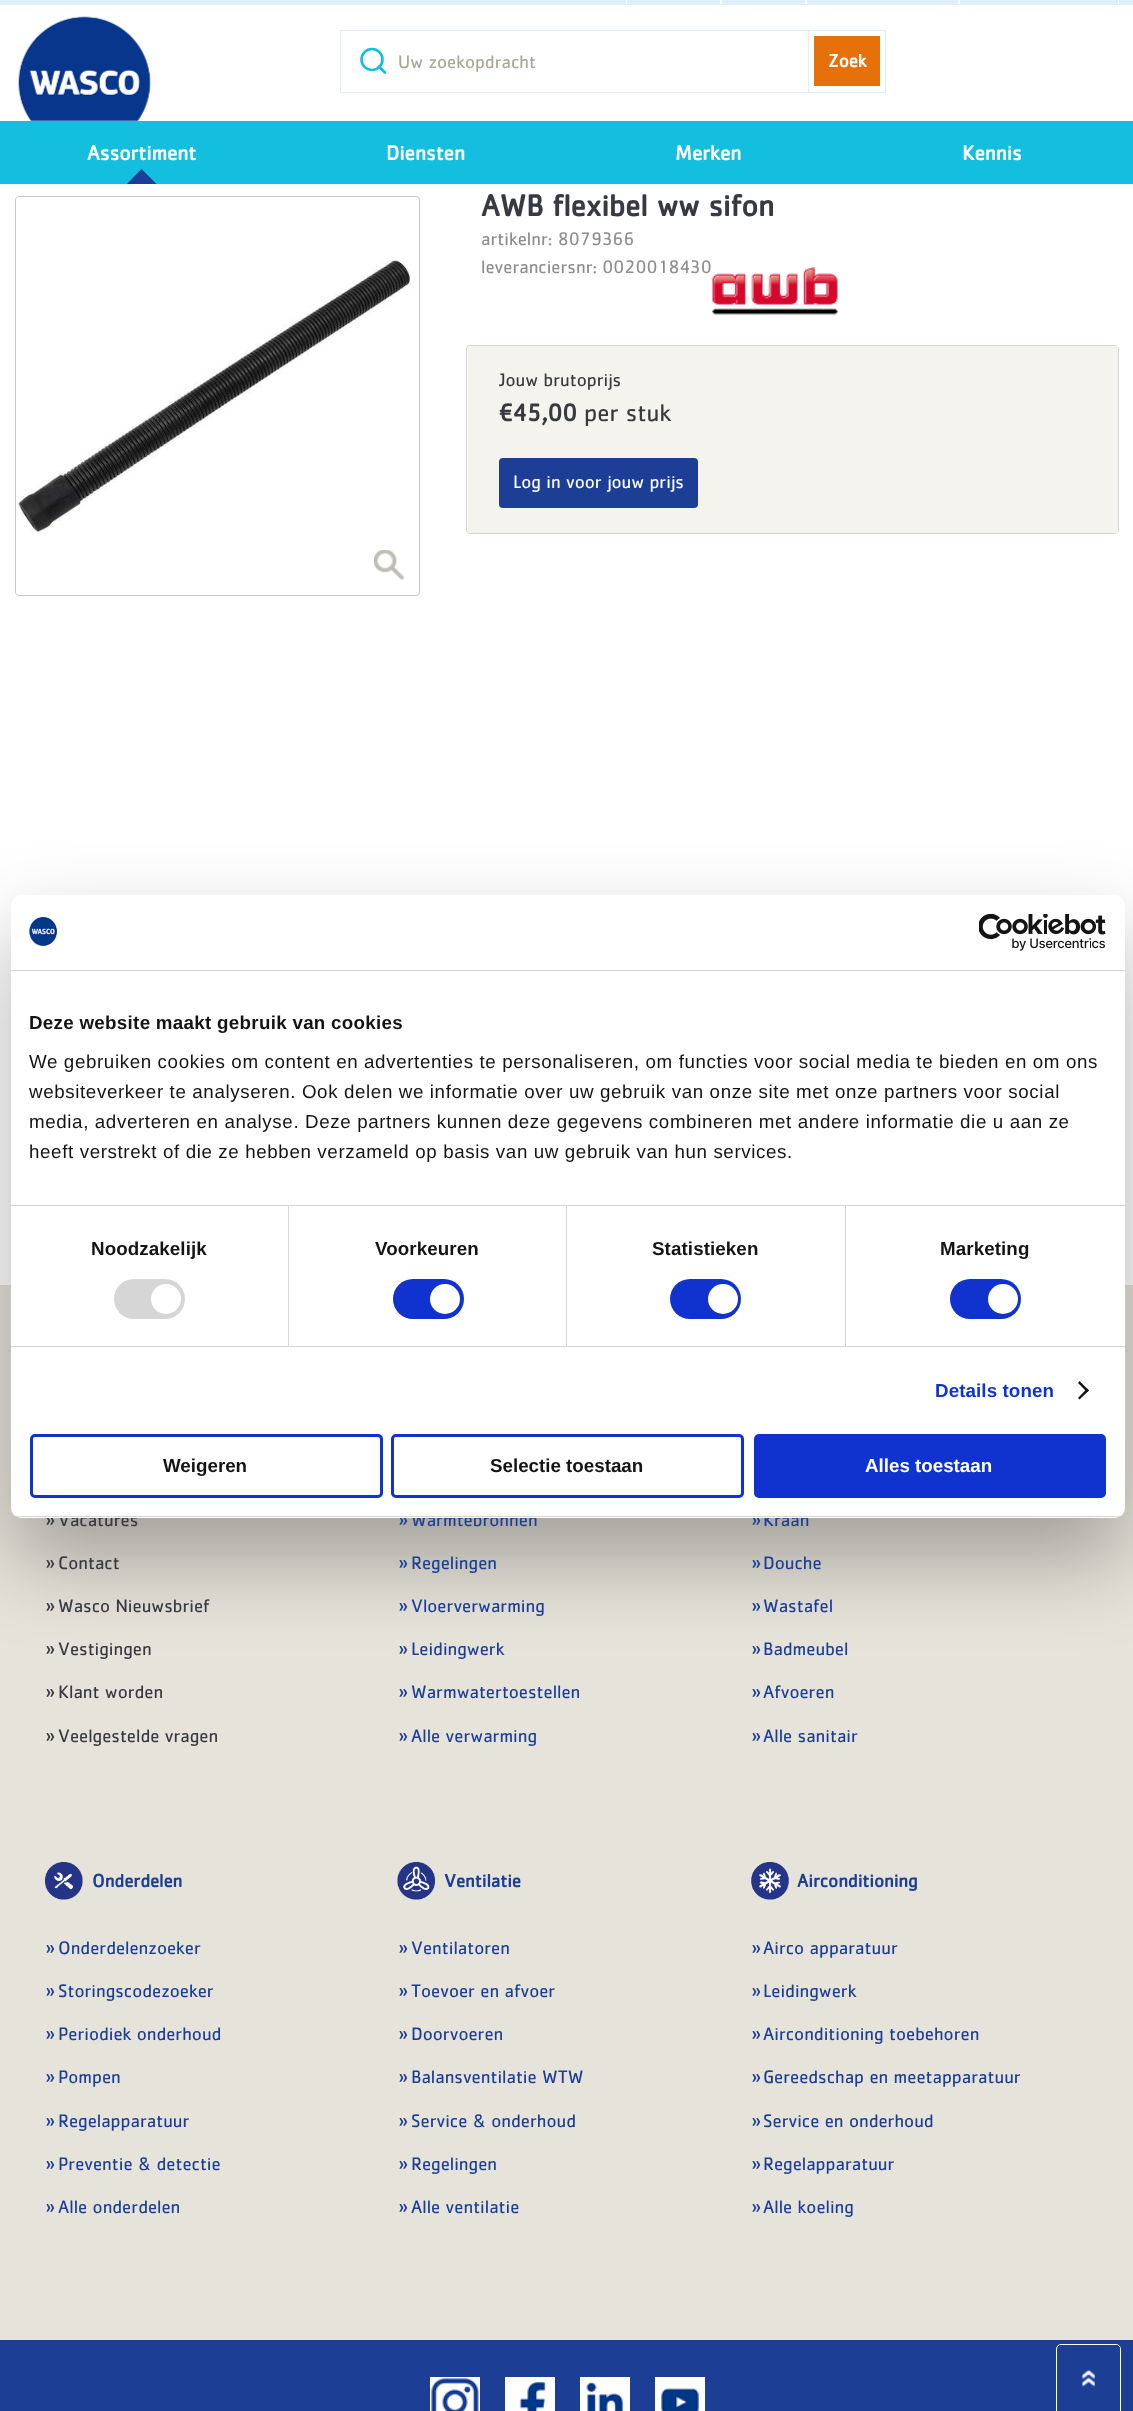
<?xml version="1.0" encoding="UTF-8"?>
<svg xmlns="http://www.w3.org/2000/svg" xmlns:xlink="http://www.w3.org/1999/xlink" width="1133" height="2411">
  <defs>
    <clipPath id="clip1"><rect y="121" width="284" height="63" /></clipPath>
    <clipPath id="clip2"><rect x="11" y="895" width="1114" height="623" rx="10" /></clipPath>
  </defs>
  <rect width="100%" height="100%" fill="#ffffff" />
  <rect width="1133" height="5" fill="#ddeff7" />
  <rect x="720" width="2" height="4" fill="#ffffff" />
  <rect x="626" width="1" height="4" fill="#ffffff" />
  <rect x="805" width="2" height="4" fill="#ffffff" />
  <rect x="958" width="2" height="4" fill="#ffffff" />
  <rect x="1118" width="1" height="4" fill="#ffffff" />
  <image x="18" y="16" width="133" height="105" xlink:href="image1.png" />
  <rect x="340.5" y="30.5" width="469" height="62" fill="none" stroke="#ddeff7" />
  <circle cx="372" cy="59.5" r="10.5" fill="none" stroke="#13bedf" stroke-width="2.6" />
  <path d="M 385 72.5 l -6 -6" fill="none" stroke="#13bedf" stroke-width="2.6" stroke-linecap="round" stroke-linejoin="round" />
  <rect x="811.5" y="33.5" width="71" height="55" fill="#e6710b" stroke="#ffffff" stroke-width="5" />
  <rect x="808.5" y="30.5" width="77" height="62" fill="none" stroke="#ddeff7" />
  <rect y="121" width="1133" height="63" fill="#13bedf" />
  <g clip-path="url(#clip1)">
    <path d="M 141.5 169 l 18 18 l -18 17.5 l -17.5 -17.5 z" fill="#1c3f95" />
  </g>
  <rect x="15.5" y="196.5" width="404" height="399" rx="3.5" fill="none" stroke="#c8c8be" />
  <image x="16" y="197" width="395" height="397" xlink:href="image2.png" />
  <image x="374" y="550" width="30" height="30" xlink:href="image3.png" />
  <image x="712" y="267" width="126" height="48" xlink:href="image4.png" />
  <rect x="466.5" y="345.5" width="652" height="188" rx="3.5" fill="none" stroke="#d4d4d4" />
  <rect x="468" y="346" width="650" height="187" fill="#f5f3ed" />
  <rect x="499" y="458" width="199" height="50" rx="4" fill="#1c3f95" />
  <rect y="1285" width="1133" height="1055" fill="#e6e3da" />
  <image x="45" y="1862" width="38" height="38" xlink:href="image5.png" />
  <image x="397" y="1862" width="38" height="38" xlink:href="image6.png" />
  <image x="751" y="1862" width="38" height="38" xlink:href="image7.png" />
  <rect y="2340" width="1133" height="71" fill="#1c3f95" />
  <image x="430" y="2377" width="50" height="34" xlink:href="image8.png" />
  <image x="505" y="2377" width="50" height="34" xlink:href="image9.png" />
  <image x="580" y="2377" width="50" height="34" xlink:href="image10.png" />
  <image x="655" y="2377" width="50" height="34" xlink:href="image11.png" />
  <path d="M 1061 2344.5 h 55 c 2.5 0 4.5 2 4.5 4.5 v 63.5 h -64 v -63.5 c 0 -2.5 2 -4.5 4.5 -4.5 z" fill="none" stroke="#ffffff" />
  <path d="M 1062 2345 h 54 c 2 0 4 2 4 4 v 62 h -62 v -62 c 0 -2 2 -4 4 -4 z" fill="#1c3f95" />
  <image x="1082" y="2370" width="13" height="17" xlink:href="image12.png" />
  <path d="M 1061 2345 h 55 c 2 0 4 2 4 4 v 62 h -62 v -62 c 0 -2 1 -4 3 -4 z m 21 25 h 13 v 41 h -13 z" fill="#1c3f95" fill-rule="evenodd" />
  <rect x="11" y="935" width="1114" height="623" rx="10" fill="#000000" fill-opacity="0.3" filter="blur(42.5px)" />
  <text x="398" y="68" style="font-family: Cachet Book; font-size: 18.75px; fill: #aba796">Uw zoekopdracht</text>
  <text x="828" y="67" style="font-family: Cachet Book; font-size: 18.75px; font-weight: bold; fill: #ffffff">Zoek</text>
  <text x="87" y="160" style="font-family: Cachet Book; font-size: 21.25px; font-weight: bold; fill: #ffffff">Assortiment</text>
  <text x="386" y="160" style="font-family: Cachet Book; font-size: 21.25px; font-weight: bold; fill: #ffffff">Diensten</text>
  <text x="675" y="160" style="font-family: Cachet Book; font-size: 21.25px; font-weight: bold; fill: #ffffff">Merken</text>
  <text x="962" y="160" style="font-family: Cachet Book; font-size: 21.25px; font-weight: bold; fill: #ffffff">Kennis</text>
  <text x="481" y="216" style="font-family: Cachet Book; font-size: 31.25px; font-weight: bold; fill: #373a41">AWB flexibel ww sifon</text>
  <text x="481" y="245" style="font-family: Cachet Book; font-size: 18.75px; fill: #8e8e8e">artikelnr: 8079366</text>
  <text x="481" y="273" style="font-family: Cachet Book; font-size: 18.75px; fill: #8e8e8e">leveranciersnr: 0020018430</text>
  <text x="499" y="386" style="font-family: Cachet Book; font-size: 18.75px; fill: #373a41">Jouw brutoprijs</text>
  <text x="499" y="421" style="font-family: Cachet Book; font-size: 25px; font-weight: bold; fill: #373a41">€45,00</text>
  <text x="584" y="421" style="font-family: Cachet Book; font-size: 25px; fill: #373a41">per stuk</text>
  <text x="513" y="488" style="font-family: Cachet Book; font-size: 18.75px; fill: #ffffff">Log in voor jouw prijs</text>
  <text x="45" y="1526" style="font-family: Cachet Book; font-size: 22px; fill: #373a41">»</text>
  <text x="58" y="1526" style="font-family: Cachet Book; font-size: 18.75px; fill: #373a41">Vacatures</text>
  <text x="45" y="1569" style="font-family: Cachet Book; font-size: 22px; fill: #373a41">»</text>
  <text x="58" y="1569" style="font-family: Cachet Book; font-size: 18.75px; fill: #373a41">Contact</text>
  <text x="45" y="1612" style="font-family: Cachet Book; font-size: 22px; fill: #373a41">»</text>
  <text x="58" y="1612" style="font-family: Cachet Book; font-size: 18.75px; fill: #373a41">Wasco Nieuwsbrief</text>
  <text x="45" y="1655" style="font-family: Cachet Book; font-size: 22px; fill: #373a41">»</text>
  <text x="58" y="1655" style="font-family: Cachet Book; font-size: 18.75px; fill: #373a41">Vestigingen</text>
  <text x="45" y="1698" style="font-family: Cachet Book; font-size: 22px; fill: #373a41">»</text>
  <text x="58" y="1698" style="font-family: Cachet Book; font-size: 18.75px; fill: #373a41">Klant worden</text>
  <text x="45" y="1742" style="font-family: Cachet Book; font-size: 22px; fill: #373a41">»</text>
  <text x="58" y="1742" style="font-family: Cachet Book; font-size: 18.75px; fill: #373a41">Veelgestelde vragen</text>
  <text x="398" y="1526" style="font-family: Cachet Book; font-size: 22px; fill: #1c3f95">»</text>
  <text x="411" y="1526" style="font-family: Cachet Book; font-size: 18.75px; fill: #1c3f95">Warmtebronnen</text>
  <text x="398" y="1569" style="font-family: Cachet Book; font-size: 22px; fill: #1c3f95">»</text>
  <text x="411" y="1569" style="font-family: Cachet Book; font-size: 18.75px; fill: #1c3f95">Regelingen</text>
  <text x="398" y="1612" style="font-family: Cachet Book; font-size: 22px; fill: #1c3f95">»</text>
  <text x="411" y="1612" style="font-family: Cachet Book; font-size: 18.75px; fill: #1c3f95">Vloerverwarming</text>
  <text x="398" y="1655" style="font-family: Cachet Book; font-size: 22px; fill: #1c3f95">»</text>
  <text x="411" y="1655" style="font-family: Cachet Book; font-size: 18.75px; fill: #1c3f95">Leidingwerk</text>
  <text x="398" y="1698" style="font-family: Cachet Book; font-size: 22px; fill: #1c3f95">»</text>
  <text x="411" y="1698" style="font-family: Cachet Book; font-size: 18.75px; fill: #1c3f95">Warmwatertoestellen</text>
  <text x="398" y="1742" style="font-family: Cachet Book; font-size: 22px; fill: #1c3f95">»</text>
  <text x="411" y="1742" style="font-family: Cachet Book; font-size: 18.75px; fill: #1c3f95">Alle verwarming</text>
  <text x="751" y="1526" style="font-family: Cachet Book; font-size: 22px; fill: #1c3f95">»</text>
  <text x="763" y="1526" style="font-family: Cachet Book; font-size: 18.75px; fill: #1c3f95">Kraan</text>
  <text x="751" y="1569" style="font-family: Cachet Book; font-size: 22px; fill: #1c3f95">»</text>
  <text x="763" y="1569" style="font-family: Cachet Book; font-size: 18.75px; fill: #1c3f95">Douche</text>
  <text x="751" y="1612" style="font-family: Cachet Book; font-size: 22px; fill: #1c3f95">»</text>
  <text x="763" y="1612" style="font-family: Cachet Book; font-size: 18.75px; fill: #1c3f95">Wastafel</text>
  <text x="751" y="1655" style="font-family: Cachet Book; font-size: 22px; fill: #1c3f95">»</text>
  <text x="763" y="1655" style="font-family: Cachet Book; font-size: 18.75px; fill: #1c3f95">Badmeubel</text>
  <text x="751" y="1698" style="font-family: Cachet Book; font-size: 22px; fill: #1c3f95">»</text>
  <text x="763" y="1698" style="font-family: Cachet Book; font-size: 18.75px; fill: #1c3f95">Afvoeren</text>
  <text x="751" y="1742" style="font-family: Cachet Book; font-size: 22px; fill: #1c3f95">»</text>
  <text x="763" y="1742" style="font-family: Cachet Book; font-size: 18.75px; fill: #1c3f95">Alle sanitair</text>
  <text x="92" y="1887" style="font-family: Cachet Book; font-size: 18.75px; font-weight: bold; fill: #1c3f95">Onderdelen</text>
  <text x="45" y="1954" style="font-family: Cachet Book; font-size: 22px; fill: #1c3f95">»</text>
  <text x="58" y="1954" style="font-family: Cachet Book; font-size: 18.75px; fill: #1c3f95">Onderdelenzoeker</text>
  <text x="45" y="1997" style="font-family: Cachet Book; font-size: 22px; fill: #1c3f95">»</text>
  <text x="58" y="1997" style="font-family: Cachet Book; font-size: 18.75px; fill: #1c3f95">Storingscodezoeker</text>
  <text x="45" y="2040" style="font-family: Cachet Book; font-size: 22px; fill: #1c3f95">»</text>
  <text x="58" y="2040" style="font-family: Cachet Book; font-size: 18.75px; fill: #1c3f95">Periodiek onderhoud</text>
  <text x="45" y="2083" style="font-family: Cachet Book; font-size: 22px; fill: #1c3f95">»</text>
  <text x="58" y="2083" style="font-family: Cachet Book; font-size: 18.75px; fill: #1c3f95">Pompen</text>
  <text x="45" y="2127" style="font-family: Cachet Book; font-size: 22px; fill: #1c3f95">»</text>
  <text x="58" y="2127" style="font-family: Cachet Book; font-size: 18.75px; fill: #1c3f95">Regelapparatuur</text>
  <text x="45" y="2170" style="font-family: Cachet Book; font-size: 22px; fill: #1c3f95">»</text>
  <text x="58" y="2170" style="font-family: Cachet Book; font-size: 18.75px; fill: #1c3f95">Preventie &amp; detectie</text>
  <text x="45" y="2213" style="font-family: Cachet Book; font-size: 22px; fill: #1c3f95">»</text>
  <text x="58" y="2213" style="font-family: Cachet Book; font-size: 18.75px; fill: #1c3f95">Alle onderdelen</text>
  <text x="444" y="1887" style="font-family: Cachet Book; font-size: 18.75px; font-weight: bold; fill: #1c3f95">Ventilatie</text>
  <text x="398" y="1954" style="font-family: Cachet Book; font-size: 22px; fill: #1c3f95">»</text>
  <text x="411" y="1954" style="font-family: Cachet Book; font-size: 18.75px; fill: #1c3f95">Ventilatoren</text>
  <text x="398" y="1997" style="font-family: Cachet Book; font-size: 22px; fill: #1c3f95">»</text>
  <text x="411" y="1997" style="font-family: Cachet Book; font-size: 18.75px; fill: #1c3f95">Toevoer en afvoer</text>
  <text x="398" y="2040" style="font-family: Cachet Book; font-size: 22px; fill: #1c3f95">»</text>
  <text x="411" y="2040" style="font-family: Cachet Book; font-size: 18.75px; fill: #1c3f95">Doorvoeren</text>
  <text x="398" y="2083" style="font-family: Cachet Book; font-size: 22px; fill: #1c3f95">»</text>
  <text x="411" y="2083" style="font-family: Cachet Book; font-size: 18.75px; fill: #1c3f95">Balansventilatie WTW</text>
  <text x="398" y="2127" style="font-family: Cachet Book; font-size: 22px; fill: #1c3f95">»</text>
  <text x="411" y="2127" style="font-family: Cachet Book; font-size: 18.75px; fill: #1c3f95">Service &amp; onderhoud</text>
  <text x="398" y="2170" style="font-family: Cachet Book; font-size: 22px; fill: #1c3f95">»</text>
  <text x="411" y="2170" style="font-family: Cachet Book; font-size: 18.75px; fill: #1c3f95">Regelingen</text>
  <text x="398" y="2213" style="font-family: Cachet Book; font-size: 22px; fill: #1c3f95">»</text>
  <text x="411" y="2213" style="font-family: Cachet Book; font-size: 18.75px; fill: #1c3f95">Alle ventilatie</text>
  <text x="797" y="1887" style="font-family: Cachet Book; font-size: 18.75px; font-weight: bold; fill: #1c3f95">Airconditioning</text>
  <text x="751" y="1954" style="font-family: Cachet Book; font-size: 22px; fill: #1c3f95">»</text>
  <text x="763" y="1954" style="font-family: Cachet Book; font-size: 18.75px; fill: #1c3f95">Airco apparatuur</text>
  <text x="751" y="1997" style="font-family: Cachet Book; font-size: 22px; fill: #1c3f95">»</text>
  <text x="763" y="1997" style="font-family: Cachet Book; font-size: 18.75px; fill: #1c3f95">Leidingwerk</text>
  <text x="751" y="2040" style="font-family: Cachet Book; font-size: 22px; fill: #1c3f95">»</text>
  <text x="763" y="2040" style="font-family: Cachet Book; font-size: 18.75px; fill: #1c3f95">Airconditioning toebehoren</text>
  <text x="751" y="2083" style="font-family: Cachet Book; font-size: 22px; fill: #1c3f95">»</text>
  <text x="763" y="2083" style="font-family: Cachet Book; font-size: 18.75px; fill: #1c3f95">Gereedschap en meetapparatuur</text>
  <text x="751" y="2127" style="font-family: Cachet Book; font-size: 22px; fill: #1c3f95">»</text>
  <text x="763" y="2127" style="font-family: Cachet Book; font-size: 18.75px; fill: #1c3f95">Service en onderhoud</text>
  <text x="751" y="2170" style="font-family: Cachet Book; font-size: 22px; fill: #1c3f95">»</text>
  <text x="763" y="2170" style="font-family: Cachet Book; font-size: 18.75px; fill: #1c3f95">Regelapparatuur</text>
  <text x="751" y="2213" style="font-family: Cachet Book; font-size: 22px; fill: #1c3f95">»</text>
  <text x="763" y="2213" style="font-family: Cachet Book; font-size: 18.75px; fill: #1c3f95">Alle koeling</text>
  <rect x="11" y="895" width="1114" height="623" rx="10" fill="#ffffff" />
  <rect x="11" y="970" width="1114" height="1" fill="#d6d6d6" />
  <image x="29" y="917" width="28" height="29" xlink:href="image13.png" />
  <image x="979" y="914" width="127" height="37" xlink:href="image14.png" />
  <rect x="11" y="1205" width="1114" height="1" fill="#d6d6d6" />
  <text x="29" y="1029" style="font-family: Liberation Sans; font-size: 18.75px; font-weight: bold; letter-spacing: 0.3px; fill: #141414">Deze website maakt gebruik van cookies</text>
  <text x="29" y="1068" style="font-family: Liberation Sans; font-size: 18.75px; letter-spacing: 0.62px; fill: #141414">We gebruiken cookies om content en advertenties te personaliseren, om functies voor social media te bieden en om ons</text>
  <text x="29" y="1098" style="font-family: Liberation Sans; font-size: 18.75px; letter-spacing: 0.62px; fill: #141414">websiteverkeer te analyseren. Ook delen we informatie over uw gebruik van onze site met onze partners voor social</text>
  <text x="29" y="1128" style="font-family: Liberation Sans; font-size: 18.75px; letter-spacing: 0.62px; fill: #141414">media, adverteren en analyse. Deze partners kunnen deze gegevens combineren met andere informatie die u aan ze</text>
  <text x="29" y="1158" style="font-family: Liberation Sans; font-size: 18.75px; letter-spacing: 0.62px; fill: #141414">heeft verstrekt of die ze hebben verzameld op basis van uw gebruik van hun services.</text>
  <rect x="11" y="1346" width="1114" height="1" fill="#d6d6d6" />
  <rect x="288" y="1206" width="1" height="140" fill="#d6d6d6" />
  <text x="91" y="1255" style="font-family: Liberation Sans; font-size: 18.75px; font-weight: bold; letter-spacing: 0.1px; fill: #141414">Noodzakelijk</text>
  <rect x="114" y="1279" width="71" height="40" rx="20" fill="#d6d6d6" />
  <circle cx="166" cy="1299" r="15" fill="#ffffff" />
  <rect x="566" y="1206" width="1" height="140" fill="#d6d6d6" />
  <text x="375" y="1255" style="font-family: Liberation Sans; font-size: 18.75px; font-weight: bold; letter-spacing: 0.1px; fill: #141414">Voorkeuren</text>
  <rect x="393" y="1279" width="71" height="40" rx="20" fill="#1032cf" />
  <circle cx="445" cy="1299" r="15" fill="#ffffff" />
  <rect x="845" y="1206" width="1" height="140" fill="#d6d6d6" />
  <text x="652" y="1255" style="font-family: Liberation Sans; font-size: 18.75px; font-weight: bold; letter-spacing: 0.1px; fill: #141414">Statistieken</text>
  <rect x="670" y="1279" width="71" height="40" rx="20" fill="#1032cf" />
  <circle cx="723" cy="1299" r="15" fill="#ffffff" />
  <text x="940" y="1255" style="font-family: Liberation Sans; font-size: 18.75px; font-weight: bold; letter-spacing: 0.1px; fill: #141414">Marketing</text>
  <rect x="950" y="1279" width="71" height="40" rx="20" fill="#1032cf" />
  <circle cx="1003" cy="1299" r="15" fill="#ffffff" />
  <text x="935" y="1397" style="font-family: Liberation Sans; font-size: 18.75px; font-weight: bold; letter-spacing: 0.1px; fill: #1032cf">Details tonen</text>
  <path d="M 1079.5 1381 l 9.5 9.5 l -2 1.5 l -9 -9 z" fill="#141414" />
  <path d="M 1087 1388.5 l 2 2 l -9.5 9 l -1.5 -1.5 z" fill="#141414" />
  <g clip-path="url(#clip2)">
    <rect x="11" y="1516" width="1114" height="1" fill="#d6d6d6" />
  </g>
  <rect x="31.5" y="1435.5" width="350" height="61" rx="3.5" fill="none" stroke="#1032cf" stroke-width="3" />
  <text x="163" y="1472" style="font-family: Liberation Sans; font-size: 18.75px; font-weight: bold; fill: #141414">Weigeren</text>
  <rect x="392.5" y="1435.5" width="350" height="61" rx="3.5" fill="none" stroke="#1032cf" stroke-width="3" />
  <text x="490" y="1472" style="font-family: Liberation Sans; font-size: 18.75px; font-weight: bold; fill: #141414">Selectie toestaan</text>
  <rect x="755.5" y="1435.5" width="349" height="61" rx="3.5" fill="#1032cf" stroke="#1032cf" stroke-width="3" />
  <text x="865" y="1472" style="font-family: Liberation Sans; font-size: 18.75px; font-weight: bold; fill: #ffffff">Alles toestaan</text>
</svg>
